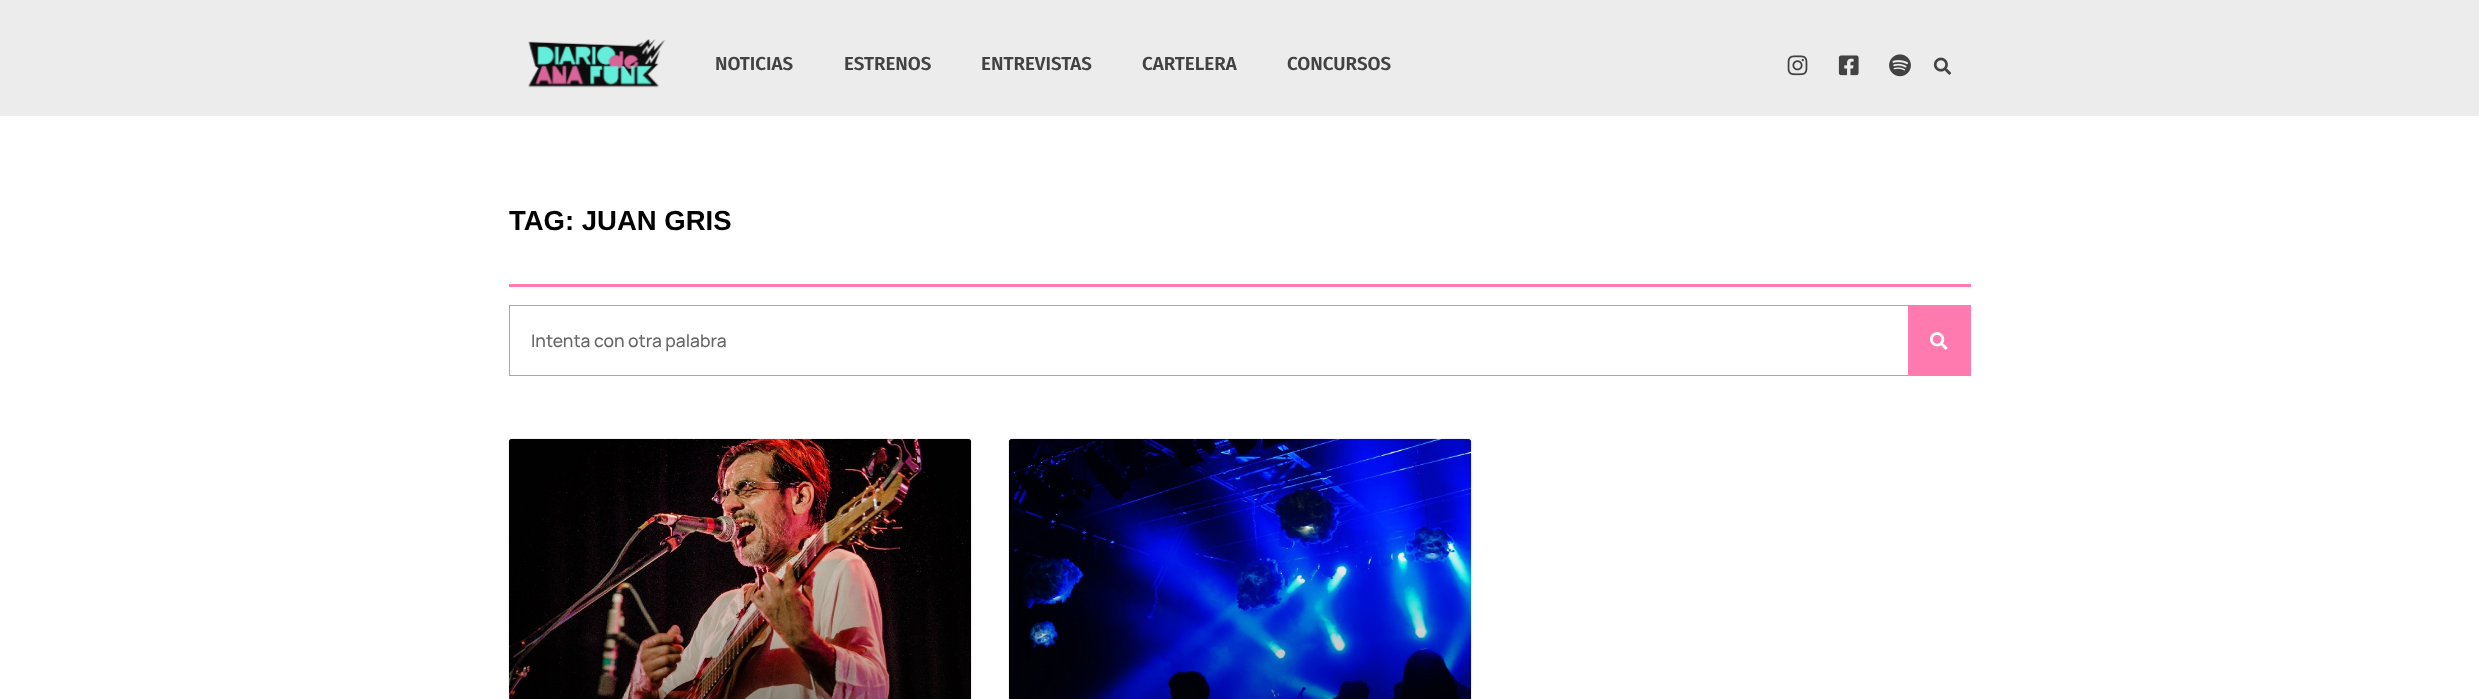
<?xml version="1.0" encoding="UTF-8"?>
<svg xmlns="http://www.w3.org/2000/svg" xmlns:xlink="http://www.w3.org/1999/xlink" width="2479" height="699">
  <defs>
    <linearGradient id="g1" gradientUnits="userSpaceOnUse" x1="740" y1="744" x2="740" y2="439"><stop offset="0" stop-color="#000000" stop-opacity="0.35" /><stop offset="0.75" stop-color="#000000" stop-opacity="0" /></linearGradient>
    <linearGradient id="g2" gradientUnits="userSpaceOnUse" x1="1240" y1="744" x2="1240" y2="439"><stop offset="0" stop-color="#000000" stop-opacity="0.35" /><stop offset="0.75" stop-color="#000000" stop-opacity="0" /></linearGradient>
  </defs>
  <rect width="100%" height="100%" fill="#ffffff" />
  <rect width="2479" height="116" fill="#ececec" />
  <image x="528" y="39" width="138" height="49" xlink:href="image1.png" />
  <image x="1787" y="55" width="21" height="21" xlink:href="image2.png" />
  <image x="1838" y="55" width="21" height="21" xlink:href="image3.png" />
  <image x="1889" y="54" width="22" height="23" xlink:href="image4.png" />
  <image x="1933" y="57" width="18" height="18" xlink:href="image5.png" />
  <rect x="509" y="284" width="1462" height="3" fill="#ff7aae" />
  <rect x="509.5" y="305.5" width="1461" height="70" fill="none" stroke="#ff7aae" />
  <rect x="1908" y="306" width="62" height="69" fill="#ff7aae" />
  <image x="1930" y="332" width="18" height="18" xlink:href="image6.png" />
  <image x="508" y="438" width="464" height="261" xlink:href="image7.png" />
  <rect x="509" y="529" width="458" height="170" fill="url(#g1)" />
  <image x="1008" y="438" width="464" height="261" xlink:href="image8.png" />
  <rect x="1009" y="529" width="462" height="170" fill="url(#g2)" />
  <text x="715" y="70" style="font-family: Fira Sans; font-size: 18.75px; font-weight: 600; fill: #424242">NOTICIAS</text>
  <text x="844" y="70" style="font-family: Fira Sans; font-size: 18.75px; font-weight: 600; fill: #424242">ESTRENOS</text>
  <text x="981" y="70" style="font-family: Fira Sans; font-size: 18.75px; font-weight: 600; fill: #424242">ENTREVISTAS</text>
  <text x="1142" y="70" style="font-family: Fira Sans; font-size: 18.75px; font-weight: 600; fill: #424242">CARTELERA</text>
  <text x="1287" y="70" style="font-family: Fira Sans; font-size: 18.75px; font-weight: 600; fill: #424242">CONCURSOS</text>
  <text x="509" y="230" style="font-family: Liberation Sans; font-size: 27.5px; font-weight: bold; fill: #000000">TAG: JUAN GRIS</text>
  <text x="531" y="347" style="font-family: Manrope; font-size: 17.5px; font-weight: 500; fill: #666666">Intenta con otra palabra</text>
</svg>
